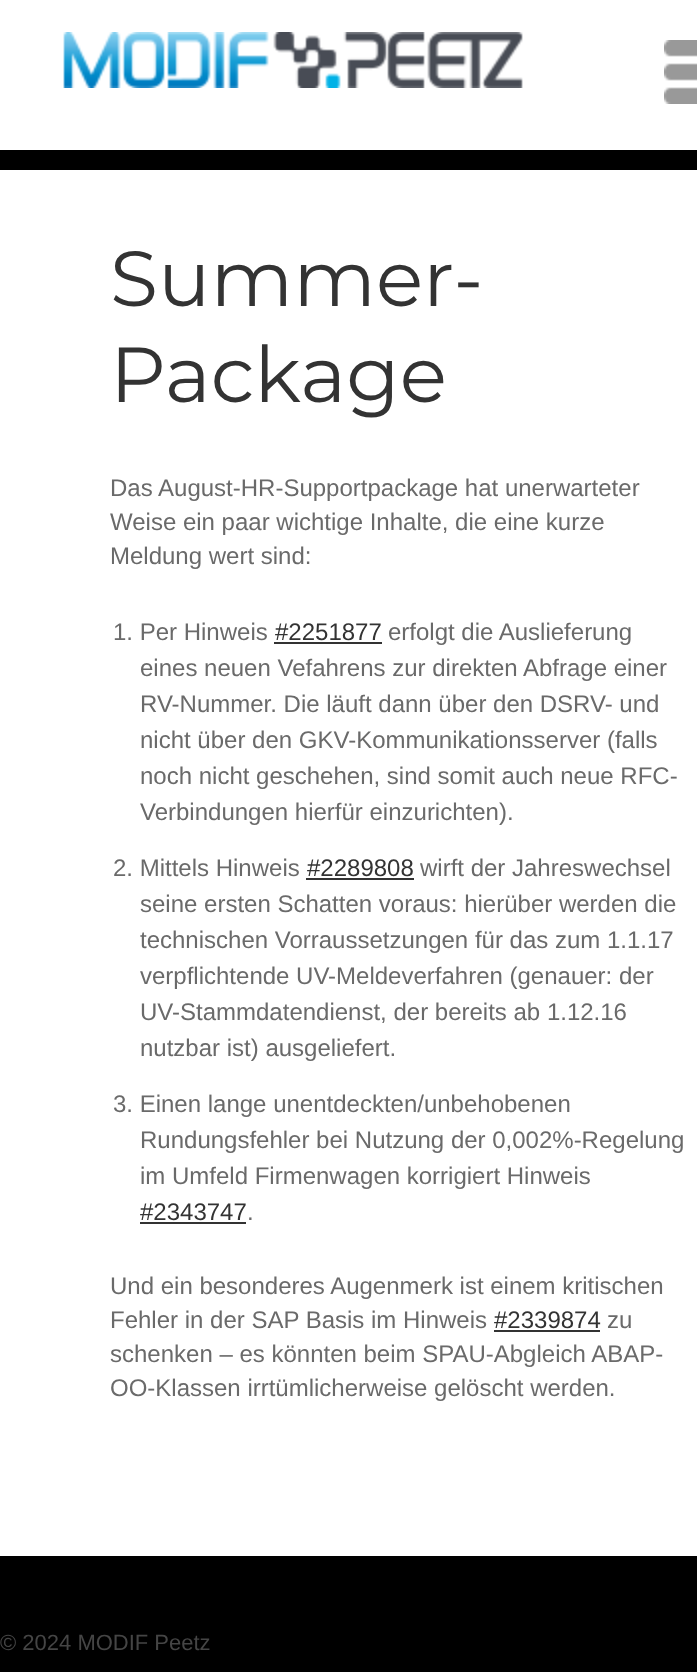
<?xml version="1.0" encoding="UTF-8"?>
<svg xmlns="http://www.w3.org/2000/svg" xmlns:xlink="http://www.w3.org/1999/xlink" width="697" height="1672">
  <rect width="100%" height="100%" fill="#ffffff" />
  <image x="0" y="1670" width="697" height="2" xlink:href="image2.png" />
  <image x="0" y="150" width="697" height="1522" xlink:href="image1.png" />
  <image x="63" y="32" width="460" height="56" xlink:href="image3.png" />
  <image x="664" y="40" width="33" height="64" xlink:href="image4.png" />
  <rect y="170" width="697" height="1386" fill="#ffffff" />
  <rect x="274" y="642" width="108" height="2" fill="#333333" />
  <rect x="306" y="878" width="108" height="2" fill="#333333" />
  <rect x="140" y="1222" width="106" height="2" fill="#333333" />
  <rect x="494" y="1330" width="106" height="2" fill="#333333" />
  <text x="110" y="306" style="font-family: Montserrat; font-size: 78px; font-weight: 100; fill: #333333">Summer-</text>
  <text x="110" y="402" style="font-family: Montserrat; font-size: 78px; font-weight: 100; fill: #333333">Package</text>
  <text x="110" y="496" style="font-family: Liberation Sans; font-size: 24px; fill: #6a6a6a">Das August-HR-Supportpackage hat unerwarteter</text>
  <text x="110" y="530" style="font-family: Liberation Sans; font-size: 24px; fill: #6a6a6a">Weise ein paar wichtige Inhalte, die eine kurze</text>
  <text x="110" y="564" style="font-family: Liberation Sans; font-size: 24px; fill: #6a6a6a">Meldung wert sind:</text>
  <text x="113" y="640" style="font-family: Liberation Sans; font-size: 24px; fill: #6a6a6a">1. Per Hinweis</text>
  <text x="275" y="640" style="font-family: Liberation Sans; font-size: 24px; fill: #333333">#2251877</text>
  <text x="388" y="640" style="font-family: Liberation Sans; font-size: 24px; fill: #6a6a6a">erfolgt die Auslieferung</text>
  <text x="140" y="676" style="font-family: Liberation Sans; font-size: 24px; fill: #6a6a6a">eines neuen Vefahrens zur direkten Abfrage einer</text>
  <text x="140" y="712" style="font-family: Liberation Sans; font-size: 24px; fill: #6a6a6a">RV-Nummer. Die läuft dann über den DSRV- und</text>
  <text x="140" y="748" style="font-family: Liberation Sans; font-size: 24px; fill: #6a6a6a">nicht über den GKV-Kommunikationsserver (falls</text>
  <text x="140" y="784" style="font-family: Liberation Sans; font-size: 24px; fill: #6a6a6a">noch nicht geschehen, sind somit auch neue RFC-</text>
  <text x="140" y="820" style="font-family: Liberation Sans; font-size: 24px; fill: #6a6a6a">Verbindungen hierfür einzurichten).</text>
  <text x="113" y="876" style="font-family: Liberation Sans; font-size: 24px; fill: #6a6a6a">2. Mittels Hinweis</text>
  <text x="307" y="876" style="font-family: Liberation Sans; font-size: 24px; fill: #333333">#2289808</text>
  <text x="420" y="876" style="font-family: Liberation Sans; font-size: 24px; fill: #6a6a6a">wirft der Jahreswechsel</text>
  <text x="140" y="912" style="font-family: Liberation Sans; font-size: 24px; fill: #6a6a6a">seine ersten Schatten voraus: hierüber werden die</text>
  <text x="140" y="948" style="font-family: Liberation Sans; font-size: 24px; fill: #6a6a6a">technischen Vorraussetzungen für das zum 1.1.17</text>
  <text x="140" y="984" style="font-family: Liberation Sans; font-size: 24px; fill: #6a6a6a">verpflichtende UV-Meldeverfahren (genauer: der</text>
  <text x="140" y="1020" style="font-family: Liberation Sans; font-size: 24px; fill: #6a6a6a">UV-Stammdatendienst, der bereits ab 1.12.16</text>
  <text x="140" y="1056" style="font-family: Liberation Sans; font-size: 24px; fill: #6a6a6a">nutzbar ist) ausgeliefert.</text>
  <text x="113" y="1112" style="font-family: Liberation Sans; font-size: 24px; fill: #6a6a6a">3. Einen lange unentdeckten/unbehobenen</text>
  <text x="140" y="1148" style="font-family: Liberation Sans; font-size: 24px; fill: #6a6a6a">Rundungsfehler bei Nutzung der 0,002%-Regelung</text>
  <text x="140" y="1184" style="font-family: Liberation Sans; font-size: 24px; fill: #6a6a6a">im Umfeld Firmenwagen korrigiert Hinweis</text>
  <text x="140" y="1220" style="font-family: Liberation Sans; font-size: 24px; fill: #333333">#2343747</text>
  <text x="247" y="1220" style="font-family: Liberation Sans; font-size: 24px; fill: #6a6a6a">.</text>
  <text x="110" y="1294" style="font-family: Liberation Sans; font-size: 24px; fill: #6a6a6a">Und ein besonderes Augenmerk ist einem kritischen</text>
  <text x="110" y="1328" style="font-family: Liberation Sans; font-size: 24px; fill: #6a6a6a">Fehler in der SAP Basis im Hinweis</text>
  <text x="494" y="1328" style="font-family: Liberation Sans; font-size: 24px; fill: #333333">#2339874</text>
  <text x="607" y="1328" style="font-family: Liberation Sans; font-size: 24px; fill: #6a6a6a">zu</text>
  <text x="110" y="1362" style="font-family: Liberation Sans; font-size: 24px; fill: #6a6a6a">schenken – es könnten beim SPAU-Abgleich ABAP-</text>
  <text x="110" y="1396" style="font-family: Liberation Sans; font-size: 24px; fill: #6a6a6a">OO-Klassen irrtümlicherweise gelöscht werden.</text>
  <text x="0" y="1650" style="font-family: Liberation Sans; font-size: 22px; fill: #454545">© 2024 MODIF Peetz</text>
</svg>
